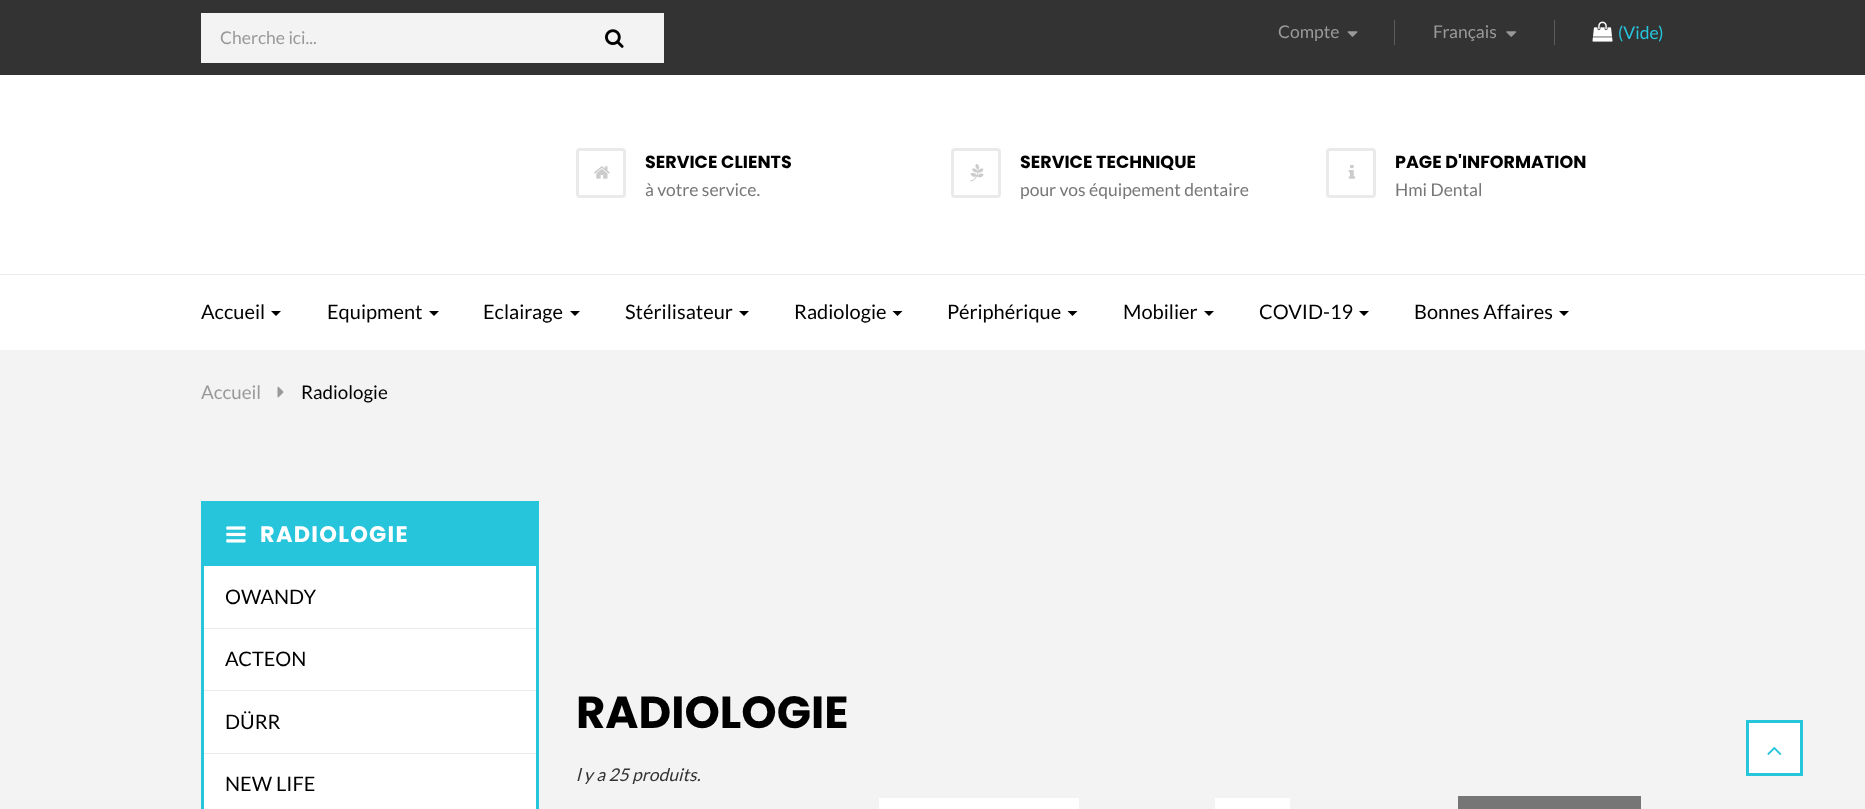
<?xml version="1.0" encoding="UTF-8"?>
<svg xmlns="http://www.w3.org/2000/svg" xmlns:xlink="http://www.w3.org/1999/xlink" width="1865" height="809">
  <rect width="100%" height="100%" fill="#f3f3f3" />
  <rect y="75" width="1865" height="275" fill="#ffffff" />
  <rect width="1865" height="75" fill="#333333" />
  <rect x="201" y="13" width="463" height="50" fill="#f3f3f3" />
  <image x="605" y="29" width="19" height="19" xlink:href="image1.png" />
  <image x="1347" y="31" width="11" height="6" xlink:href="image2.png" />
  <rect x="1394" y="20" width="1" height="25" fill="#5c5c5c" />
  <image x="1506" y="31" width="11" height="6" xlink:href="image3.png" />
  <rect x="1554" y="20" width="1" height="25" fill="#5c5c5c" />
  <image x="1592" y="21" width="21" height="21" xlink:href="image4.png" />
  <rect x="577.5" y="149.5" width="47" height="47" rx="2.5" fill="none" stroke="#eaeaea" stroke-width="3" />
  <image x="594" y="166" width="16" height="13" xlink:href="image5.png" />
  <rect x="952.5" y="149.5" width="47" height="47" rx="2.5" fill="none" stroke="#eaeaea" stroke-width="3" />
  <image x="970" y="164" width="14" height="18" xlink:href="image6.png" />
  <rect x="1327.5" y="149.5" width="47" height="47" rx="2.5" fill="none" stroke="#eaeaea" stroke-width="3" />
  <image x="1348" y="165" width="7" height="14" xlink:href="image7.png" />
  <rect y="274" width="1865" height="1" fill="#eaeaea" />
  <path d="M 271 311 h 10 l -5 5 z" fill="#000000" />
  <path d="M 429 311 h 10 l -5 5 z" fill="#000000" />
  <path d="M 570 311 h 10 l -5 5 z" fill="#000000" />
  <path d="M 739 311 h 10 l -5 5 z" fill="#000000" />
  <path d="M 892.5 311 h 10 l -5 5 z" fill="#000000" />
  <path d="M 1067.5 311 h 10 l -5 5 z" fill="#000000" />
  <path d="M 1204 311 h 10 l -5 5 z" fill="#000000" />
  <path d="M 1359 311 h 10 l -5 5 z" fill="#000000" />
  <path d="M 1559 311 h 10 l -5 5 z" fill="#000000" />
  <image x="277" y="386" width="7" height="12" xlink:href="image8.png" />
  <rect x="202.5" y="502.5" width="335" height="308" fill="none" stroke="#27c5dc" stroke-width="3" />
  <rect x="204" y="504" width="332" height="62" fill="#27c5dc" />
  <image x="226" y="526" width="20" height="17" xlink:href="image9.png" />
  <rect x="204" y="566" width="332" height="243" fill="#ffffff" />
  <rect x="204" y="628" width="332" height="1" fill="#eaeaea" />
  <rect x="204" y="690" width="332" height="1" fill="#eaeaea" />
  <rect x="204" y="753" width="332" height="1" fill="#eaeaea" />
  <rect x="879" y="798" width="200" height="11" fill="#ffffff" />
  <rect x="1215" y="798" width="75" height="11" fill="#ffffff" />
  <rect x="1458" y="796" width="183" height="13" fill="#767676" />
  <rect x="1747.5" y="721.5" width="54" height="53" fill="#ffffff" stroke="#27c5dc" stroke-width="3" />
  <image x="1767" y="746" width="15" height="9" xlink:href="image10.png" />
  <text x="220" y="44" style="font-family: Lato; font-size: 17.5px; fill: #999999">Cherche ici...</text>
  <text x="1278" y="38" style="font-family: Lato; font-size: 17.5px; fill: #999999">Compte</text>
  <text x="1433" y="38" style="font-family: Lato; font-size: 17.5px; fill: #999999">Français</text>
  <text x="1618" y="39" style="font-family: Lato; font-size: 17.5px; fill: #27c5dc">(Vide)</text>
  <text x="645" y="168" style="font-family: Poppins; font-size: 17.5px; font-weight: bold; fill: #000000">SERVICE CLIENTS</text>
  <text x="645" y="196" style="font-family: Lato; font-size: 17.5px; fill: #777777">à votre service.</text>
  <text x="1020" y="168" style="font-family: Poppins; font-size: 17.5px; font-weight: bold; fill: #000000">SERVICE TECHNIQUE</text>
  <text x="1020" y="196" style="font-family: Lato; font-size: 17.5px; fill: #777777">pour vos équipement dentaire</text>
  <text x="1395" y="168" style="font-family: Poppins; font-size: 17.5px; font-weight: bold; fill: #000000">PAGE D'INFORMATION</text>
  <text x="1395" y="196" style="font-family: Lato; font-size: 17.5px; fill: #777777">Hmi Dental</text>
  <text x="201" y="319" style="font-family: Lato; font-size: 20px; fill: #000000">Accueil</text>
  <text x="327" y="319" style="font-family: Lato; font-size: 20px; fill: #000000">Equipment</text>
  <text x="483" y="319" style="font-family: Lato; font-size: 20px; fill: #000000">Eclairage</text>
  <text x="625" y="319" style="font-family: Lato; font-size: 20px; fill: #000000">Stérilisateur</text>
  <text x="794" y="319" style="font-family: Lato; font-size: 20px; fill: #000000">Radiologie</text>
  <text x="947" y="319" style="font-family: Lato; font-size: 20px; fill: #000000">Périphérique</text>
  <text x="1123" y="319" style="font-family: Lato; font-size: 20px; fill: #000000">Mobilier</text>
  <text x="1259" y="319" style="font-family: Lato; font-size: 20px; fill: #000000">COVID-19</text>
  <text x="1414" y="319" style="font-family: Lato; font-size: 20px; fill: #000000">Bonnes Affaires</text>
  <text x="201" y="399" style="font-family: Lato; font-size: 18.75px; fill: #999999">Accueil</text>
  <text x="301" y="399" style="font-family: Lato; font-size: 18.75px; fill: #000000">Radiologie</text>
  <text x="260" y="542" style="font-family: Poppins; font-size: 22.5px; font-weight: bold; letter-spacing: 1.25px; fill: #ffffff">RADIOLOGIE</text>
  <text x="225" y="604" style="font-family: Lato; font-size: 20px; fill: #000000">OWANDY</text>
  <text x="225" y="666" style="font-family: Lato; font-size: 20px; fill: #000000">ACTEON</text>
  <text x="225" y="729" style="font-family: Lato; font-size: 20px; fill: #000000">DÜRR</text>
  <text x="225" y="791" style="font-family: Lato; font-size: 20px; fill: #000000">NEW LIFE</text>
  <text x="576" y="728" style="font-family: Poppins; font-size: 45px; font-weight: bold; fill: #000000">RADIOLOGIE</text>
  <text x="576" y="781" style="font-family: Lato; font-size: 17.5px; font-style: italic; fill: #333333">l y a 25 produits.</text>
</svg>
